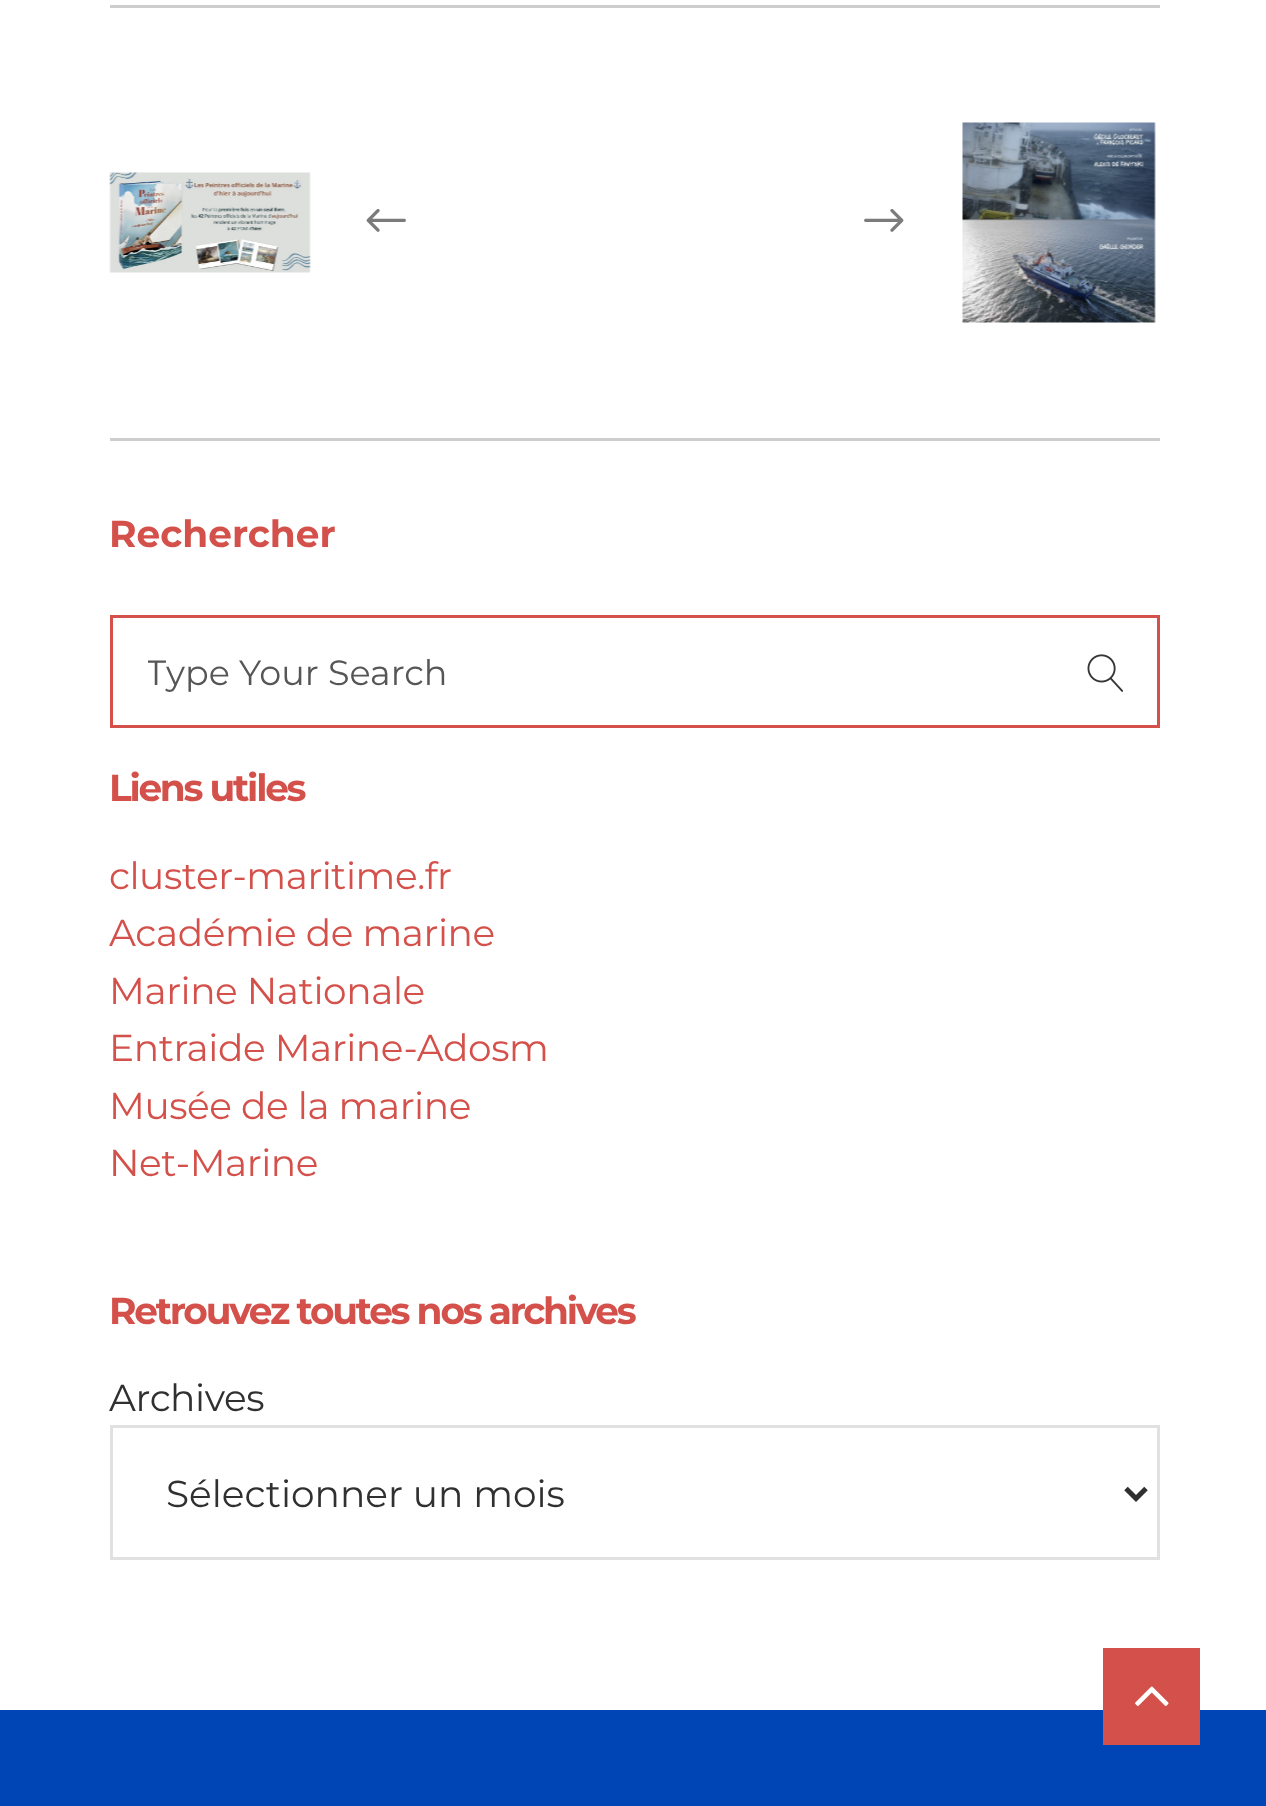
<?xml version="1.0" encoding="UTF-8"?>
<svg xmlns="http://www.w3.org/2000/svg" xmlns:xlink="http://www.w3.org/1999/xlink" width="1266" height="1806">
  <defs>
    <clipPath id="clip1"><rect x="148" y="650" width="910" height="45" /></clipPath>
  </defs>
  <rect width="100%" height="100%" fill="#0045b5" />
  <rect width="1266" height="1710" fill="#ffffff" />
  <rect x="110" y="5" width="1050" height="3" fill="#cdcdcd" />
  <rect x="110" y="438" width="1050" height="3" fill="#cdcdcd" />
  <image x="109" y="172" width="202" height="101" xlink:href="image1.png" />
  <image x="366" y="209" width="40" height="23" xlink:href="image2.png" />
  <image x="864" y="209" width="40" height="23" xlink:href="image3.png" />
  <image x="962" y="122" width="194" height="201" xlink:href="image4.png" />
  <rect x="111.5" y="616.5" width="1047" height="110" fill="none" stroke="#d4504a" stroke-width="3" />
  <image x="1087" y="654" width="37" height="38" xlink:href="image5.png" />
  <rect x="111.5" y="1426.5" width="1047" height="132" fill="none" stroke="#e1e1e1" stroke-width="3" />
  <path d="M 1126 1488.5 l 10 10 l 10 -10" fill="none" stroke="#303030" stroke-width="5" />
  <rect x="1103" y="1648" width="97" height="97" fill="#d4504a" />
  <image x="1135" y="1686" width="34" height="20" xlink:href="image6.png" />
  <text x="109" y="547" style="font-family: Montserrat; font-size: 37.5px; font-weight: bold; fill: #d4504a">Rechercher</text>
  <g clip-path="url(#clip1)">
    <text x="146" y="685" style="font-family: Montserrat; font-size: 35px; fill: #565656">Type Your Search</text>
  </g>
  <text x="109" y="801" style="font-family: Montserrat; font-size: 37.5px; font-weight: bold; letter-spacing: -2.25px; fill: #d4504a">Liens utiles</text>
  <text x="109" y="889" style="font-family: Montserrat; font-size: 37.5px; letter-spacing: -0.4px; fill: #d4504a">cluster-maritime.fr</text>
  <text x="109" y="946" style="font-family: Montserrat; font-size: 37.5px; letter-spacing: -0.4px; fill: #d4504a">Académie de marine</text>
  <text x="109" y="1004" style="font-family: Montserrat; font-size: 37.5px; letter-spacing: -0.4px; fill: #d4504a">Marine Nationale</text>
  <text x="109" y="1061" style="font-family: Montserrat; font-size: 37.5px; letter-spacing: -0.4px; fill: #d4504a">Entraide Marine-Adosm</text>
  <text x="109" y="1119" style="font-family: Montserrat; font-size: 37.5px; letter-spacing: -0.4px; fill: #d4504a">Musée de la marine</text>
  <text x="109" y="1176" style="font-family: Montserrat; font-size: 37.5px; letter-spacing: -0.4px; fill: #d4504a">Net-Marine</text>
  <text x="109" y="1324" style="font-family: Montserrat; font-size: 37.5px; font-weight: bold; letter-spacing: -2.25px; fill: #d4504a">Retrouvez toutes nos archives</text>
  <text x="109" y="1411" style="font-family: Montserrat; font-size: 37.5px; letter-spacing: -0.4px; fill: #303030">Archives</text>
  <text x="166" y="1507" style="font-family: Montserrat; font-size: 37.5px; fill: #303030">Sélectionner un mois</text>
</svg>
